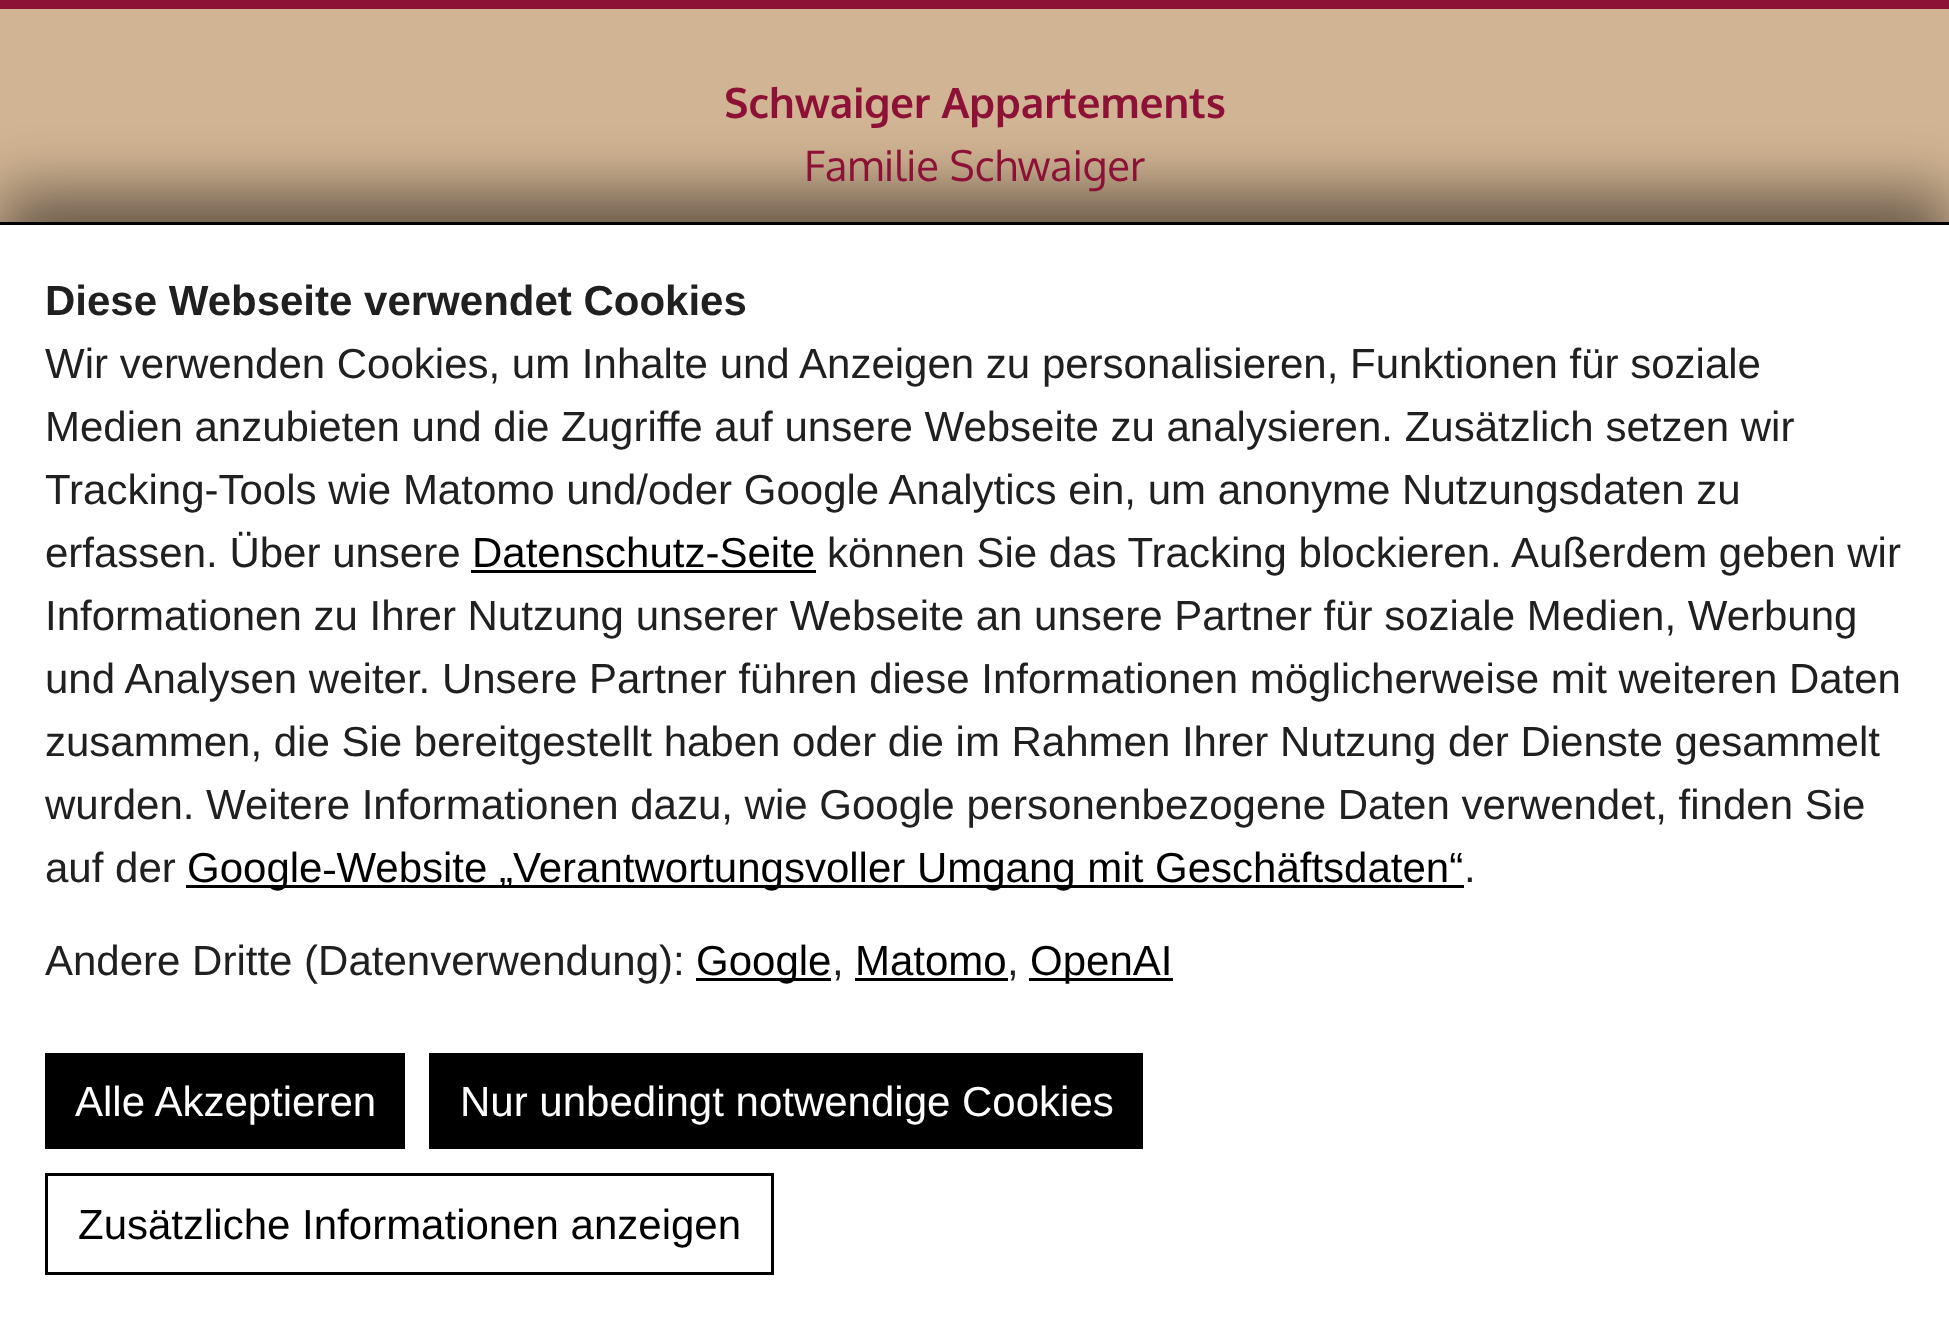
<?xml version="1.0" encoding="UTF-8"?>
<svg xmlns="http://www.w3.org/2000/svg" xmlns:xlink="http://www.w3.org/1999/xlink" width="1949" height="1344">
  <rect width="100%" height="100%" fill="#8d1137" />
  <rect y="9" width="1949" height="213" fill="#d1b493" />
  <rect y="192" width="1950" height="1122" fill="#000000" fill-opacity="0.5" filter="blur(30px)" />
  <rect y="225" width="1949" height="1119" fill="#ffffff" />
  <rect y="222" width="1949" height="3" fill="#000000" />
  <rect x="471" y="570" width="345" height="3" fill="#000000" />
  <rect x="186" y="885" width="1278" height="3" fill="#000000" />
  <rect x="696" y="978" width="135" height="3" fill="#000000" />
  <rect x="855" y="978" width="153" height="3" fill="#000000" />
  <rect x="1029" y="978" width="144" height="3" fill="#000000" />
  <rect x="45" y="1053" width="360" height="96" fill="#000000" />
  <rect x="429" y="1053" width="714" height="96" fill="#000000" />
  <rect x="46.5" y="1174.5" width="726" height="99" fill="none" stroke="#000000" stroke-width="3" />
  <text x="724" y="118" style="font-family: Oxygen; font-size: 42px; font-weight: bold; fill: #8d1137">Schwaiger Appartements</text>
  <text x="804" y="181" style="font-family: Oxygen; font-size: 42px; fill: #8d1137">Familie Schwaiger</text>
  <text x="45" y="315" style="font-family: Liberation Sans; font-size: 42px; font-weight: bold; fill: #202020">Diese Webseite verwendet Cookies</text>
  <text x="45" y="378" style="font-family: Liberation Sans; font-size: 42px; fill: #202020">Wir verwenden Cookies, um Inhalte und Anzeigen zu personalisieren, Funktionen für soziale</text>
  <text x="45" y="441" style="font-family: Liberation Sans; font-size: 42px; fill: #202020">Medien anzubieten und die Zugriffe auf unsere Webseite zu analysieren. Zusätzlich setzen wir</text>
  <text x="45" y="504" style="font-family: Liberation Sans; font-size: 42px; fill: #202020">Tracking-Tools wie Matomo und/oder Google Analytics ein, um anonyme Nutzungsdaten zu</text>
  <text x="45" y="567" style="font-family: Liberation Sans; font-size: 42px; fill: #202020">erfassen. Über unsere</text>
  <text x="472" y="567" style="font-family: Liberation Sans; font-size: 42px; fill: #000000">Datenschutz-Seite</text>
  <text x="827" y="567" style="font-family: Liberation Sans; font-size: 42px; fill: #202020">können Sie das Tracking blockieren. Außerdem geben wir</text>
  <text x="45" y="630" style="font-family: Liberation Sans; font-size: 42px; fill: #202020">Informationen zu Ihrer Nutzung unserer Webseite an unsere Partner für soziale Medien, Werbung</text>
  <text x="45" y="693" style="font-family: Liberation Sans; font-size: 42px; fill: #202020">und Analysen weiter. Unsere Partner führen diese Informationen möglicherweise mit weiteren Daten</text>
  <text x="45" y="756" style="font-family: Liberation Sans; font-size: 42px; fill: #202020">zusammen, die Sie bereitgestellt haben oder die im Rahmen Ihrer Nutzung der Dienste gesammelt</text>
  <text x="45" y="819" style="font-family: Liberation Sans; font-size: 42px; fill: #202020">wurden. Weitere Informationen dazu, wie Google personenbezogene Daten verwendet, finden Sie</text>
  <text x="45" y="882" style="font-family: Liberation Sans; font-size: 42px; fill: #202020">auf der</text>
  <text x="187" y="882" style="font-family: Liberation Sans; font-size: 42px; fill: #000000">Google‑Website „Verantwortungsvoller Umgang mit Geschäftsdaten“</text>
  <text x="1464" y="882" style="font-family: Liberation Sans; font-size: 42px; fill: #202020">.</text>
  <text x="45" y="975" style="font-family: Liberation Sans; font-size: 42px; fill: #202020">Andere Dritte (Datenverwendung):</text>
  <text x="696" y="975" style="font-family: Liberation Sans; font-size: 42px; fill: #000000">Google</text>
  <text x="832" y="975" style="font-family: Liberation Sans; font-size: 42px; fill: #202020">,</text>
  <text x="855" y="975" style="font-family: Liberation Sans; font-size: 42px; fill: #000000">Matomo</text>
  <text x="1007" y="975" style="font-family: Liberation Sans; font-size: 42px; fill: #202020">,</text>
  <text x="1030" y="975" style="font-family: Liberation Sans; font-size: 42px; fill: #000000">OpenAI</text>
  <text x="75" y="1116" style="font-family: Liberation Sans; font-size: 42px; fill: #ffffff">Alle Akzeptieren</text>
  <text x="460" y="1116" style="font-family: Liberation Sans; font-size: 42px; fill: #ffffff">Nur unbedingt notwendige Cookies</text>
  <text x="78" y="1239" style="font-family: Liberation Sans; font-size: 42px; fill: #000000">Zusätzliche Informationen anzeigen</text>
</svg>
